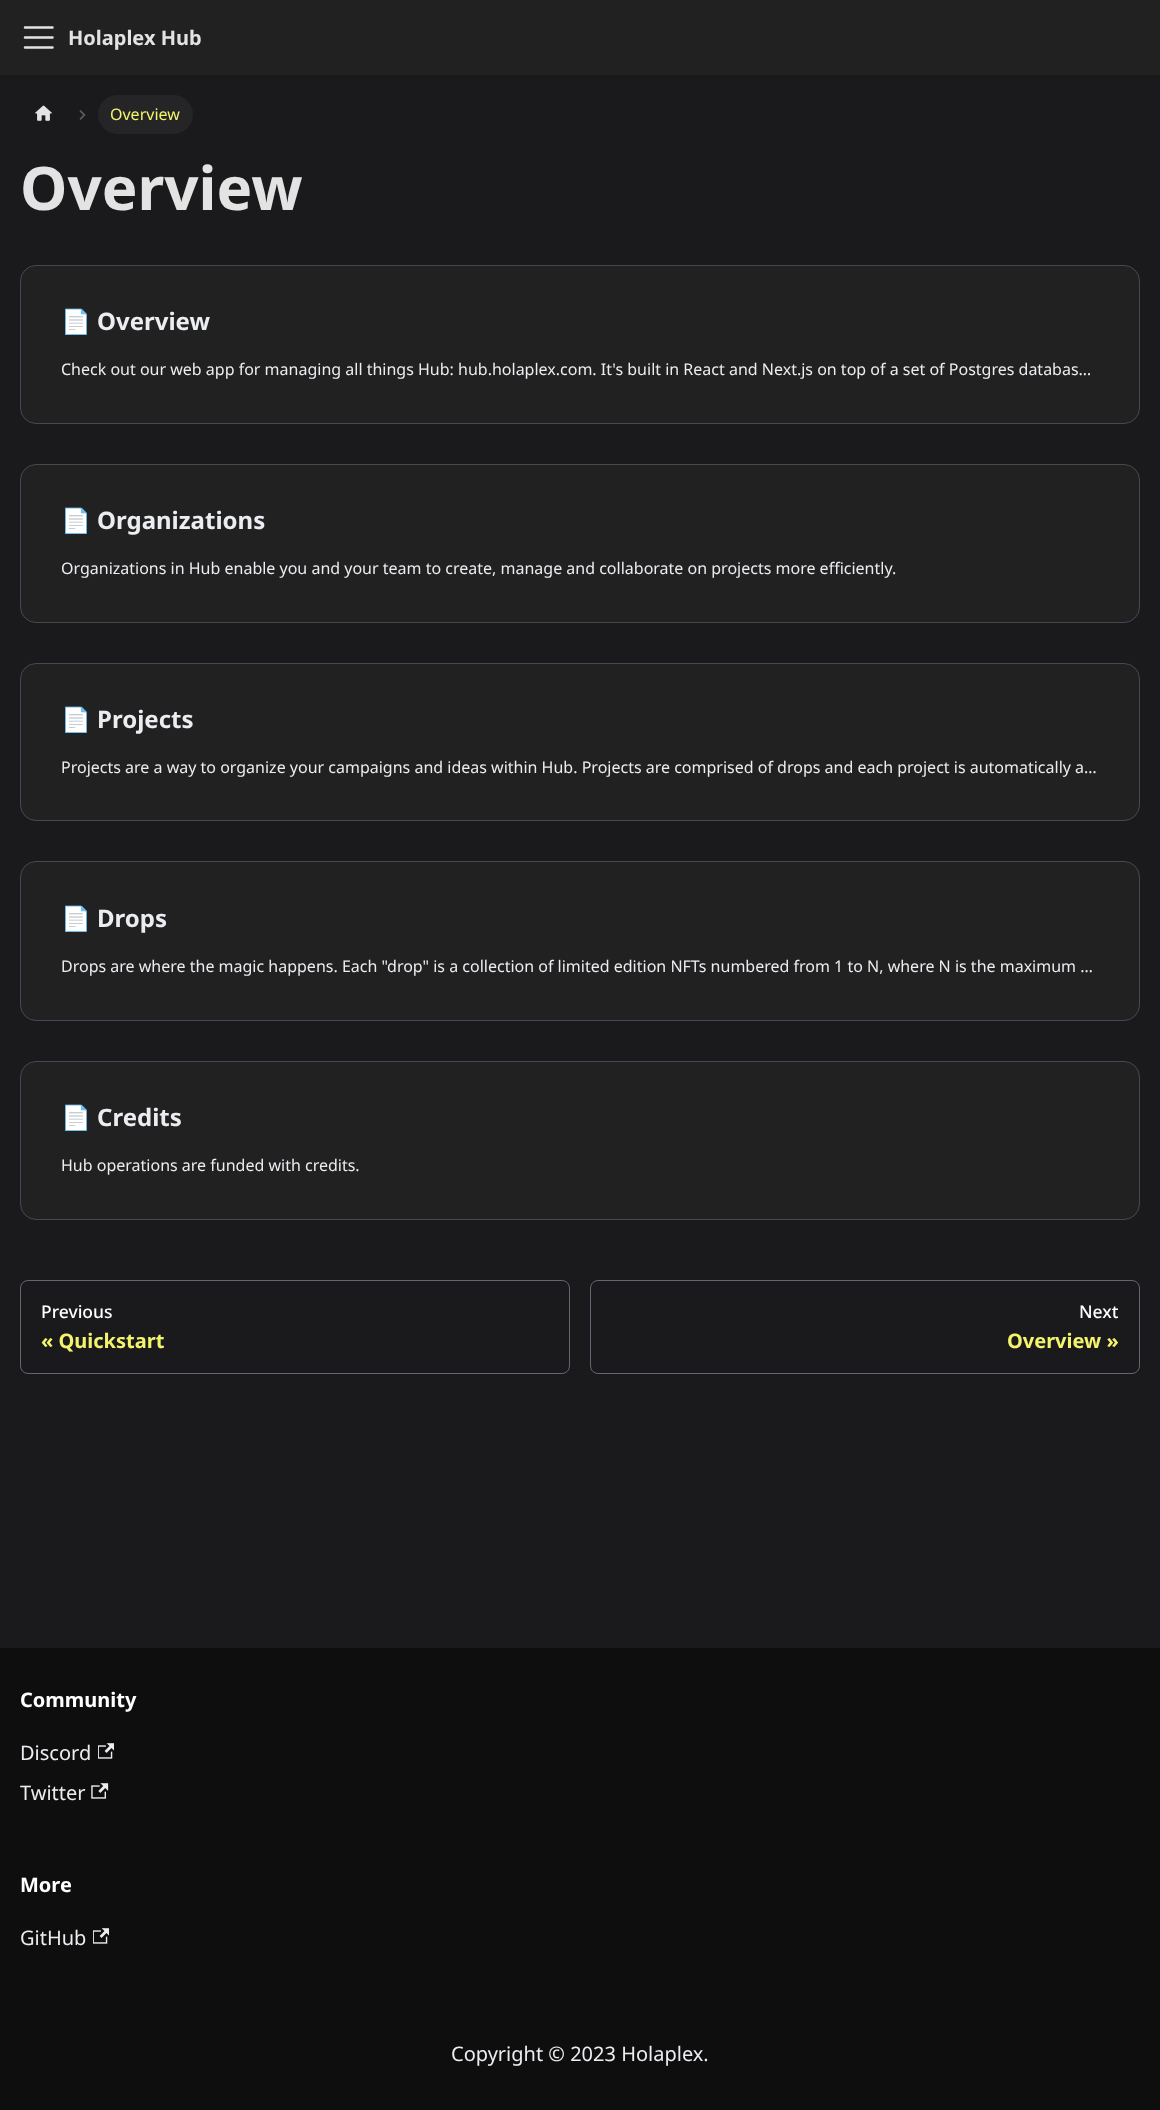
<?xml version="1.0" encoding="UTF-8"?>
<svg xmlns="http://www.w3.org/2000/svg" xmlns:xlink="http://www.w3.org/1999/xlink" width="1160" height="2110">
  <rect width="100%" height="100%" fill="#1a1a1d" />
  <rect width="1160" height="75" fill="#212122" />
  <path d="M 25 27.5 h 27.5 m -27.5 10 h 27.5 m -27.5 10 h 27.5" fill="none" stroke="#e3e3e3" stroke-width="2.5" stroke-linecap="round" />
  <image x="35" y="105" width="17" height="16" xlink:href="image1.png" />
  <image x="79" y="110" width="7" height="10" xlink:href="image2.png" />
  <rect x="98" y="95" width="95" height="39" rx="19.5" fill="#252528" />
  <rect x="20.5" y="265.5" width="1119" height="158" rx="15.5" fill="#212122" stroke="#444950" />
  <rect x="20.5" y="464.5" width="1119" height="158" rx="15.5" fill="#212122" stroke="#444950" />
  <rect x="20.5" y="663.5" width="1119" height="157" rx="15.5" fill="#212122" stroke="#444950" />
  <rect x="20.5" y="861.5" width="1119" height="159" rx="15.5" fill="#212122" stroke="#444950" />
  <rect x="20.5" y="1061.5" width="1119" height="158" rx="15.5" fill="#212122" stroke="#444950" />
  <rect x="20.5" y="1280.5" width="549" height="93" rx="7.5" fill="none" stroke="#606770" />
  <rect x="590.5" y="1280.5" width="549" height="93" rx="7.5" fill="none" stroke="#606770" />
  <rect y="1648" width="1160" height="462" fill="#0e0e0e" />
  <image x="98" y="1743" width="16" height="16" xlink:href="image3.png" />
  <image x="91" y="1783" width="18" height="16" xlink:href="image4.png" />
  <image x="93" y="1928" width="16" height="16" xlink:href="image3.png" />
  <text x="68" y="45" style="font-family: Noto Sans; font-size: 20px; font-weight: bold; fill: #e3e3e3">Holaplex Hub</text>
  <text x="110" y="120" style="font-family: Noto Sans; font-size: 16px; fill: #f3f36d">Overview</text>
  <text x="20" y="210" style="font-family: Noto Sans; font-size: 60px; font-weight: bold; fill: #e3e3e3">Overview</text>
  <text x="61" y="330" style="font-family: Noto Color Emoji; font-size: 24px; font-weight: bold; fill: #ebedf0">📄️</text>
  <text x="97" y="330" style="font-family: Noto Sans; font-size: 24px; font-weight: bold; fill: #ebedf0">Overview</text>
  <text x="61" y="375" style="font-family: Noto Sans; font-size: 16px; fill: #ebedf0">Check out our web app for managing all things Hub: hub.holaplex.com. It's built in React and Next.js on top of a set of Postgres databas…</text>
  <text x="61" y="529" style="font-family: Noto Color Emoji; font-size: 24px; font-weight: bold; fill: #ebedf0">📄️</text>
  <text x="97" y="529" style="font-family: Noto Sans; font-size: 24px; font-weight: bold; fill: #ebedf0">Organizations</text>
  <text x="61" y="574" style="font-family: Noto Sans; font-size: 16px; fill: #ebedf0">Organizations in Hub enable you and your team to create, manage and collaborate on projects more efficiently.</text>
  <text x="61" y="728" style="font-family: Noto Color Emoji; font-size: 24px; font-weight: bold; fill: #ebedf0">📄️</text>
  <text x="97" y="728" style="font-family: Noto Sans; font-size: 24px; font-weight: bold; fill: #ebedf0">Projects</text>
  <text x="61" y="773" style="font-family: Noto Sans; font-size: 16px; fill: #ebedf0">Projects are a way to organize your campaigns and ideas within Hub. Projects are comprised of drops and each project is automatically a…</text>
  <text x="61" y="927" style="font-family: Noto Color Emoji; font-size: 24px; font-weight: bold; fill: #ebedf0">📄️</text>
  <text x="97" y="927" style="font-family: Noto Sans; font-size: 24px; font-weight: bold; fill: #ebedf0">Drops</text>
  <text x="61" y="972" style="font-family: Noto Sans; font-size: 16px; fill: #ebedf0">Drops are where the magic happens. Each "drop" is a collection of limited edition NFTs numbered from 1 to N, where N is the maximum …</text>
  <text x="61" y="1126" style="font-family: Noto Color Emoji; font-size: 24px; font-weight: bold; fill: #ebedf0">📄️</text>
  <text x="97" y="1126" style="font-family: Noto Sans; font-size: 24px; font-weight: bold; fill: #ebedf0">Credits</text>
  <text x="61" y="1171" style="font-family: Noto Sans; font-size: 16px; fill: #ebedf0">Hub operations are funded with credits.</text>
  <text x="41" y="1318" style="font-family: Noto Sans; font-size: 17.5px; font-weight: 500; fill: #ffffff">Previous</text>
  <text x="41" y="1348" style="font-family: Noto Sans; font-size: 20px; font-weight: bold; fill: #f3f36d">« Quickstart</text>
  <text x="1079" y="1318" style="font-family: Noto Sans; font-size: 17.5px; font-weight: 500; fill: #ffffff">Next</text>
  <text x="1007" y="1348" style="font-family: Noto Sans; font-size: 20px; font-weight: bold; fill: #f3f36d">Overview »</text>
  <text x="20" y="1707" style="font-family: Noto Sans; font-size: 20px; font-weight: bold; fill: #ffffff">Community</text>
  <text x="20" y="1760" style="font-family: Noto Sans; font-size: 20px; fill: #ebedf0">Discord</text>
  <text x="20" y="1800" style="font-family: Noto Sans; font-size: 20px; fill: #ebedf0">Twitter</text>
  <text x="20" y="1892" style="font-family: Noto Sans; font-size: 20px; font-weight: bold; fill: #ffffff">More</text>
  <text x="20" y="1945" style="font-family: Noto Sans; font-size: 20px; fill: #ebedf0">GitHub</text>
  <text x="451" y="2061" style="font-family: Noto Sans; font-size: 20px; fill: #ebedf0">Copyright © 2023 Holaplex.</text>
</svg>
